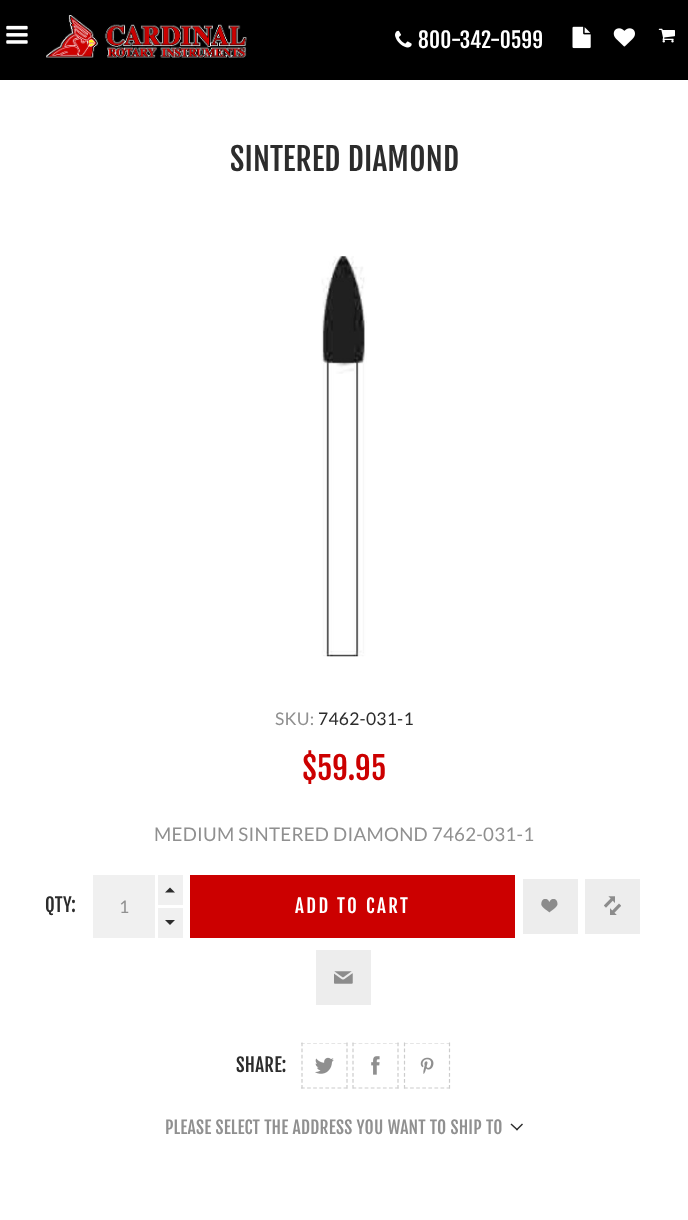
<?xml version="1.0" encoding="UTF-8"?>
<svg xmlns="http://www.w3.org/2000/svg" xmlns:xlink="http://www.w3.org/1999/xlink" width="688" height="1220">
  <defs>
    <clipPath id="clip1"><rect x="299" y="1043" width="154" height="48" /></clipPath>
  </defs>
  <rect width="100%" height="100%" fill="#ffffff" />
  <rect width="688" height="80" fill="#000000" />
  <image x="6" y="25" width="22" height="19" xlink:href="image1.png" />
  <image x="46" y="15" width="201" height="43" xlink:href="image2.png" />
  <image x="395" y="30" width="17" height="18" xlink:href="image3.png" />
  <image x="572" y="26" width="19" height="23" xlink:href="image4.png" />
  <image x="613" y="28" width="22" height="19" xlink:href="image5.png" />
  <image x="658" y="28" width="17" height="15" xlink:href="image6.png" />
  <rect x="158" y="875" width="25" height="30" fill="#f0f0f0" />
  <path d="M 175 892.5 h -10 l 5 -5 z" fill="#2c2c2c" />
  <rect x="93" y="875" width="62" height="63" fill="#f0f0f0" />
  <rect x="158" y="908" width="25" height="30" fill="#f0f0f0" />
  <path d="M 165 920 h 10 l -5 5 z" fill="#2c2c2c" />
  <rect x="190" y="875" width="325" height="63" fill="#cc0000" />
  <rect x="523" y="879" width="55" height="55" fill="#ededed" />
  <image x="541" y="899" width="17" height="14" xlink:href="image7.png" />
  <rect x="585" y="879" width="55" height="55" fill="#ededed" />
  <image x="604" y="896" width="17" height="19" xlink:href="image8.png" />
  <rect x="316" y="950" width="55" height="55" fill="#ededed" />
  <image x="334" y="971" width="19" height="13" xlink:href="image9.png" />
  <g clip-path="url(#clip1)">
    <path d="M 301 1043 h 46.5" fill="none" stroke="#cccccc" stroke-width="1.2" stroke-dasharray="3.75 2.33" />
  </g>
  <path d="M 347 1042.5 v 46.5 m -46 -1 h 46.5 m -45.5 -45.5 v 46.5" fill="none" stroke="#cccccc" stroke-width="1.2" stroke-dasharray="3.75 2.33" />
  <image x="315" y="1057" width="19" height="17" xlink:href="image10.png" />
  <g clip-path="url(#clip1)">
    <path d="M 352.5 1043 h 46.5" fill="none" stroke="#cccccc" stroke-width="1.2" stroke-dasharray="3.75 2.33" />
  </g>
  <path d="M 398 1042.5 v 46.5 m -45.5 -1 h 46.5 m -46 -45.5 v 46.5" fill="none" stroke="#cccccc" stroke-width="1.2" stroke-dasharray="3.75 2.33" />
  <image x="371" y="1056" width="9" height="19" xlink:href="image11.png" />
  <g clip-path="url(#clip1)">
    <path d="M 404 1043 h 46" fill="none" stroke="#cccccc" stroke-width="1.2" stroke-dasharray="3.75 2.33" />
  </g>
  <path d="M 449.5 1042.5 v 46.5 m -45.5 -1 h 46 m -45.5 -45.5 v 46.5" fill="none" stroke="#cccccc" stroke-width="1.2" stroke-dasharray="3.75 2.33" />
  <image x="420" y="1057" width="14" height="17" xlink:href="image12.png" />
  <path d="M 522 1123.5 l 1 1 l -6 6 l -1 -1 z" fill="#2c2c2c" />
  <path d="M 511.5 1123.5 l 6.5 6 l -1 1 l -6.5 -6 z" fill="#2c2c2c" />
  <image x="321" y="256" width="46" height="401" xlink:href="image13.png" />
  <text x="418" y="48" style="font-family: Fjalla One; font-size: 21.25px; letter-spacing: 0.25px; fill: #ffffff">800-342-0599</text>
  <text x="230" y="171" style="font-family: Fjalla One; font-size: 31.25px; letter-spacing: 0.25px; fill: #2c2c2c">SINTERED DIAMOND</text>
  <text x="275" y="725" style="font-family: Lato; font-size: 17.5px; letter-spacing: 0.25px; fill: #909090">SKU:</text>
  <text x="318" y="725" style="font-family: Lato; font-size: 17.5px; letter-spacing: 0.25px; fill: #2c2c2c">7462-031-1</text>
  <text x="302" y="780" style="font-family: Fjalla One; font-size: 31.25px; letter-spacing: 0.25px; fill: #cc0000">$59.95</text>
  <text x="154" y="841" style="font-family: Lato; font-size: 18.75px; letter-spacing: 0.25px; fill: #909090">MEDIUM SINTERED DIAMOND 7462-031-1</text>
  <text x="45" y="912" style="font-family: Fjalla One; font-size: 18.75px; letter-spacing: 0.25px; fill: #2c2c2c">QTY:</text>
  <text x="119" y="913" style="font-family: Lato; font-size: 17.5px; fill: #909090">1</text>
  <text x="295" y="913" style="font-family: Fjalla One; font-size: 18.75px; letter-spacing: 2.5px; fill: #ffffff">ADD TO CART</text>
  <text x="236" y="1072" style="font-family: Fjalla One; font-size: 18.75px; letter-spacing: 0.25px; fill: #2c2c2c">SHARE:</text>
  <text x="165" y="1134" style="font-family: Fjalla One; font-size: 17.5px; letter-spacing: 0.25px; fill: #909090">PLEASE SELECT THE ADDRESS YOU WANT TO SHIP TO</text>
</svg>
